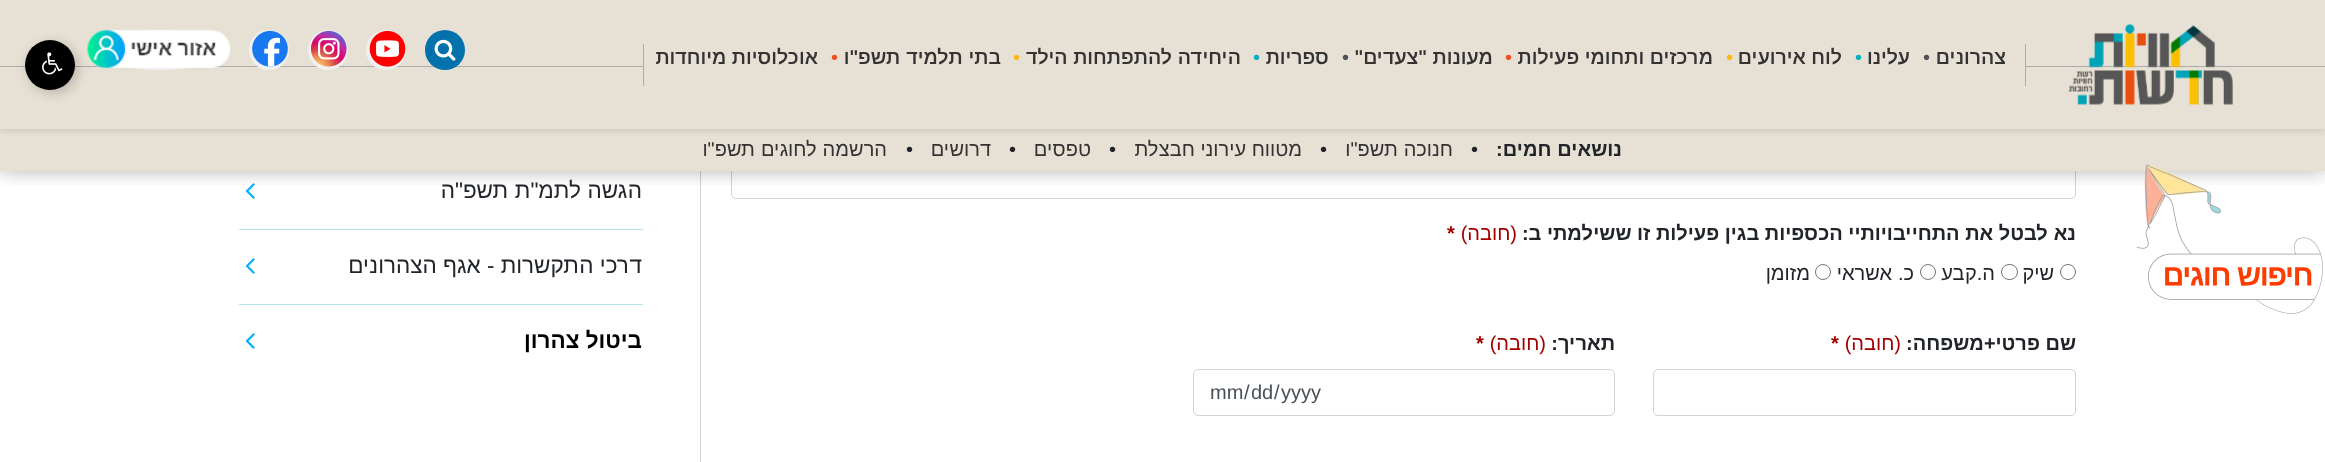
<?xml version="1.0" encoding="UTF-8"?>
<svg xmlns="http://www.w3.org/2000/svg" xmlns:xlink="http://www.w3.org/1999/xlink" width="2325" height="462">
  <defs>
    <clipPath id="clip1"><rect x="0" y="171" width="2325" height="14" /></clipPath>
    <clipPath id="clip2"><path d="M 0 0 h 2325 v 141 h -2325 z m 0 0 h 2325 v 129 h -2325 z" clip-rule="evenodd" /></clipPath>
  </defs>
  <rect width="100%" height="100%" fill="#ffffff" />
  <rect x="731.5" y="121.5" width="1344" height="77" rx="4.5" fill="none" stroke="#ced4da" />
  <rect width="2325" height="171" fill="#e7e0d4" />
  <rect x="700" y="171" width="1" height="291" fill="#d2d2d2" />
  <image x="245" y="183" width="10" height="16" xlink:href="image9.png" />
  <g clip-path="url(#clip1)">
    <rect width="2325" height="171" fill="#000000" fill-opacity="0.3" filter="blur(9.5px)" />
  </g>
  <g clip-path="url(#clip2)">
    <rect y="3" width="2325" height="128" fill="#000000" fill-opacity="0.1" filter="blur(3px)" />
  </g>
  <rect y="66" width="2325" height="1" fill="#acacac" />
  <image x="2068" y="24" width="165" height="81" xlink:href="image1.png" />
  <rect x="644" y="66" width="1381" height="1" fill="#e7e0d4" />
  <rect x="2025" y="44" width="1" height="42" fill="#acacac" />
  <rect x="643" y="44" width="1" height="42" fill="#acacac" />
  <circle cx="445" cy="50" r="20" fill="#0372ac" />
  <image x="434" y="39" width="22" height="22" xlink:href="image2.png" />
  <circle cx="386" cy="50" r="20" fill="#f0f0f0" />
  <image x="369" y="30" width="37" height="37" xlink:href="image3.png" />
  <circle cx="328" cy="50" r="20" fill="#f0f0f0" />
  <image x="310" y="30" width="37" height="37" xlink:href="image4.png" />
  <circle cx="269" cy="50" r="20" fill="#f0f0f0" />
  <image x="252" y="30" width="36" height="37" xlink:href="image5.png" />
  <ellipse cx="159" cy="50" rx="71" ry="20" fill="#f0f0f0" />
  <image x="87" y="30" width="143" height="38" xlink:href="image6.png" />
  <rect x="28" y="43" width="50" height="50" rx="25" fill="#000000" fill-opacity="0.2" filter="blur(6px)" />
  <circle cx="50" cy="65" r="25" fill="#000000" />
  <image x="42" y="52" width="21" height="23" xlink:href="image7.png" />
  <image x="2136" y="164" width="187" height="150" xlink:href="image8.png" />
  <circle cx="2068" cy="272" r="7.5" fill="none" stroke="#767676" />
  <rect x="2001.5" y="264.5" width="16" height="15" rx="7.5" fill="none" stroke="#767676" />
  <circle cx="1928" cy="272" r="7.5" fill="none" stroke="#767676" />
  <circle cx="1823" cy="272" r="7.5" fill="none" stroke="#767676" />
  <rect x="1653.5" y="369.5" width="422" height="46" rx="4.5" fill="none" stroke="#ced4da" />
  <rect x="1193.5" y="369.5" width="421" height="46" rx="4.5" fill="none" stroke="#ced4da" />
  <rect x="239" y="229" width="404" height="1" fill="#b3e7ec" />
  <rect x="239" y="304" width="404" height="1" fill="#b3e7ec" />
  <image x="245" y="258" width="10" height="16" xlink:href="image9.png" />
  <image x="245" y="333" width="10" height="16" xlink:href="image9.png" />
  <text x="2006" y="64" style="font-family: Arimo; font-size: 20px; font-weight: 600; direction: rtl; fill: #333333">צהרונים</text>
  <text x="1923" y="64" style="font-family: Arimo; font-size: 20px; fill: #4f5252">•</text>
  <text x="1910" y="64" style="font-family: Arimo; font-size: 20px; font-weight: 600; direction: rtl; fill: #333333">עלינו</text>
  <text x="1855" y="64" style="font-family: Arimo; font-size: 20px; fill: #00b0be">•</text>
  <text x="1842" y="64" style="font-family: Arimo; font-size: 20px; font-weight: 600; direction: rtl; fill: #333333">לוח אירועים</text>
  <text x="1726" y="64" style="font-family: Arimo; font-size: 20px; fill: #fcb814">•</text>
  <text x="1713" y="64" style="font-family: Arimo; font-size: 20px; font-weight: 600; direction: rtl; fill: #333333">מרכזים ותחומי פעילות</text>
  <text x="1505" y="64" style="font-family: Arimo; font-size: 20px; fill: #f15022">•</text>
  <text x="1493" y="64" style="font-family: Arimo; font-size: 20px; font-weight: 600; direction: rtl; fill: #333333">מעונות "צעדים"</text>
  <text x="1342" y="64" style="font-family: Arimo; font-size: 20px; fill: #4f5252">•</text>
  <text x="1329" y="64" style="font-family: Arimo; font-size: 20px; font-weight: 600; direction: rtl; fill: #333333">ספריות</text>
  <text x="1253" y="64" style="font-family: Arimo; font-size: 20px; fill: #00b0be">•</text>
  <text x="1241" y="64" style="font-family: Arimo; font-size: 20px; font-weight: 600; direction: rtl; fill: #333333">היחידה להתפתחות הילד</text>
  <text x="1013" y="64" style="font-family: Arimo; font-size: 20px; fill: #fcb814">•</text>
  <text x="1001" y="64" style="font-family: Arimo; font-size: 20px; font-weight: 600; direction: rtl; fill: #333333">בתי תלמיד תשפ"ו</text>
  <text x="831" y="64" style="font-family: Arimo; font-size: 20px; fill: #f15022">•</text>
  <text x="818" y="64" style="font-family: Arimo; font-size: 20px; font-weight: 600; direction: rtl; fill: #333333">אוכלוסיות מיוחדות</text>
  <text x="1622" y="156" style="font-family: Arimo; font-size: 20px; font-weight: bold; direction: rtl; fill: #212529">נושאים חמים:</text>
  <text x="1471" y="156" style="font-family: Arimo; font-size: 20px; fill: #212529">•</text>
  <text x="1453" y="156" style="font-family: Arimo; font-size: 20px; direction: rtl; fill: #333333">חנוכה תשפ"ו</text>
  <text x="1320" y="156" style="font-family: Arimo; font-size: 20px; fill: #212529">•</text>
  <text x="1302" y="156" style="font-family: Arimo; font-size: 20px; direction: rtl; fill: #333333">מטווח עירוני חבצלת</text>
  <text x="1109" y="156" style="font-family: Arimo; font-size: 20px; fill: #212529">•</text>
  <text x="1091" y="156" style="font-family: Arimo; font-size: 20px; direction: rtl; fill: #333333">טפסים</text>
  <text x="1009" y="156" style="font-family: Arimo; font-size: 20px; fill: #212529">•</text>
  <text x="991" y="156" style="font-family: Arimo; font-size: 20px; direction: rtl; fill: #333333">דרושים</text>
  <text x="906" y="156" style="font-family: Arimo; font-size: 20px; fill: #212529">•</text>
  <text x="887" y="156" style="font-family: Arimo; font-size: 20px; direction: rtl; fill: #333333">הרשמה לחוגים תשפ"ו</text>
  <text x="2076" y="240" style="font-family: Arimo; font-size: 20px; font-weight: bold; direction: rtl; fill: #212529">נא לבטל את התחייבויותיי הכספיות בגין פעילות זו ששילמתי ב:</text>
  <text x="1517" y="240" style="font-family: Arimo; font-size: 20px; direction: rtl; fill: #a30000">(חובה)</text>
  <text x="1447" y="240" style="font-family: Arimo; font-size: 20px; font-weight: bold; fill: #a30000">*</text>
  <text x="2054" y="280" style="font-family: Arimo; font-size: 20px; direction: rtl; fill: #212529">שיק</text>
  <text x="1995" y="280" style="font-family: Arimo; font-size: 20px; direction: rtl; fill: #212529">ה.קבע</text>
  <text x="1914" y="280" style="font-family: Arimo; font-size: 20px; direction: rtl; fill: #212529">כ. אשראי</text>
  <text x="1810" y="280" style="font-family: Arimo; font-size: 20px; direction: rtl; fill: #212529">מזומן</text>
  <text x="2076" y="350" style="font-family: Arimo; font-size: 20px; font-weight: bold; direction: rtl; fill: #212529">שם פרטי+משפחה:</text>
  <text x="1901" y="350" style="font-family: Arimo; font-size: 20px; direction: rtl; fill: #a30000">(חובה)</text>
  <text x="1831" y="350" style="font-family: Arimo; font-size: 20px; font-weight: bold; fill: #a30000">*</text>
  <text x="1615" y="350" style="font-family: Arimo; font-size: 20px; font-weight: bold; direction: rtl; fill: #212529">תאריך:</text>
  <text x="1546" y="350" style="font-family: Arimo; font-size: 20px; direction: rtl; fill: #a30000">(חובה)</text>
  <text x="1476" y="350" style="font-family: Arimo; font-size: 20px; font-weight: bold; fill: #a30000">*</text>
  <text x="1281" y="399" style="font-family: Arimo; font-size: 20px; fill: #495057">yyyy</text>
  <text x="1274" y="399" style="font-family: Arimo; font-size: 20px; fill: #495057">/</text>
  <text x="1251" y="399" style="font-family: Arimo; font-size: 20px; fill: #495057">dd</text>
  <text x="1244" y="399" style="font-family: Arimo; font-size: 20px; fill: #495057">/</text>
  <text x="1210" y="399" style="font-family: Arimo; font-size: 20px; fill: #495057">mm</text>
  <text x="642" y="198" style="font-family: Arimo; font-size: 22.5px; direction: rtl; fill: #212529">הגשה לתמ"ת תשפ"ה</text>
  <text x="642" y="273" style="font-family: Arimo; font-size: 22.5px; direction: rtl; fill: #212529">דרכי התקשרות - אגף הצהרונים</text>
  <text x="642" y="348" style="font-family: Arimo; font-size: 22.5px; font-weight: bold; direction: rtl; fill: #000000">ביטול צהרון</text>
</svg>
